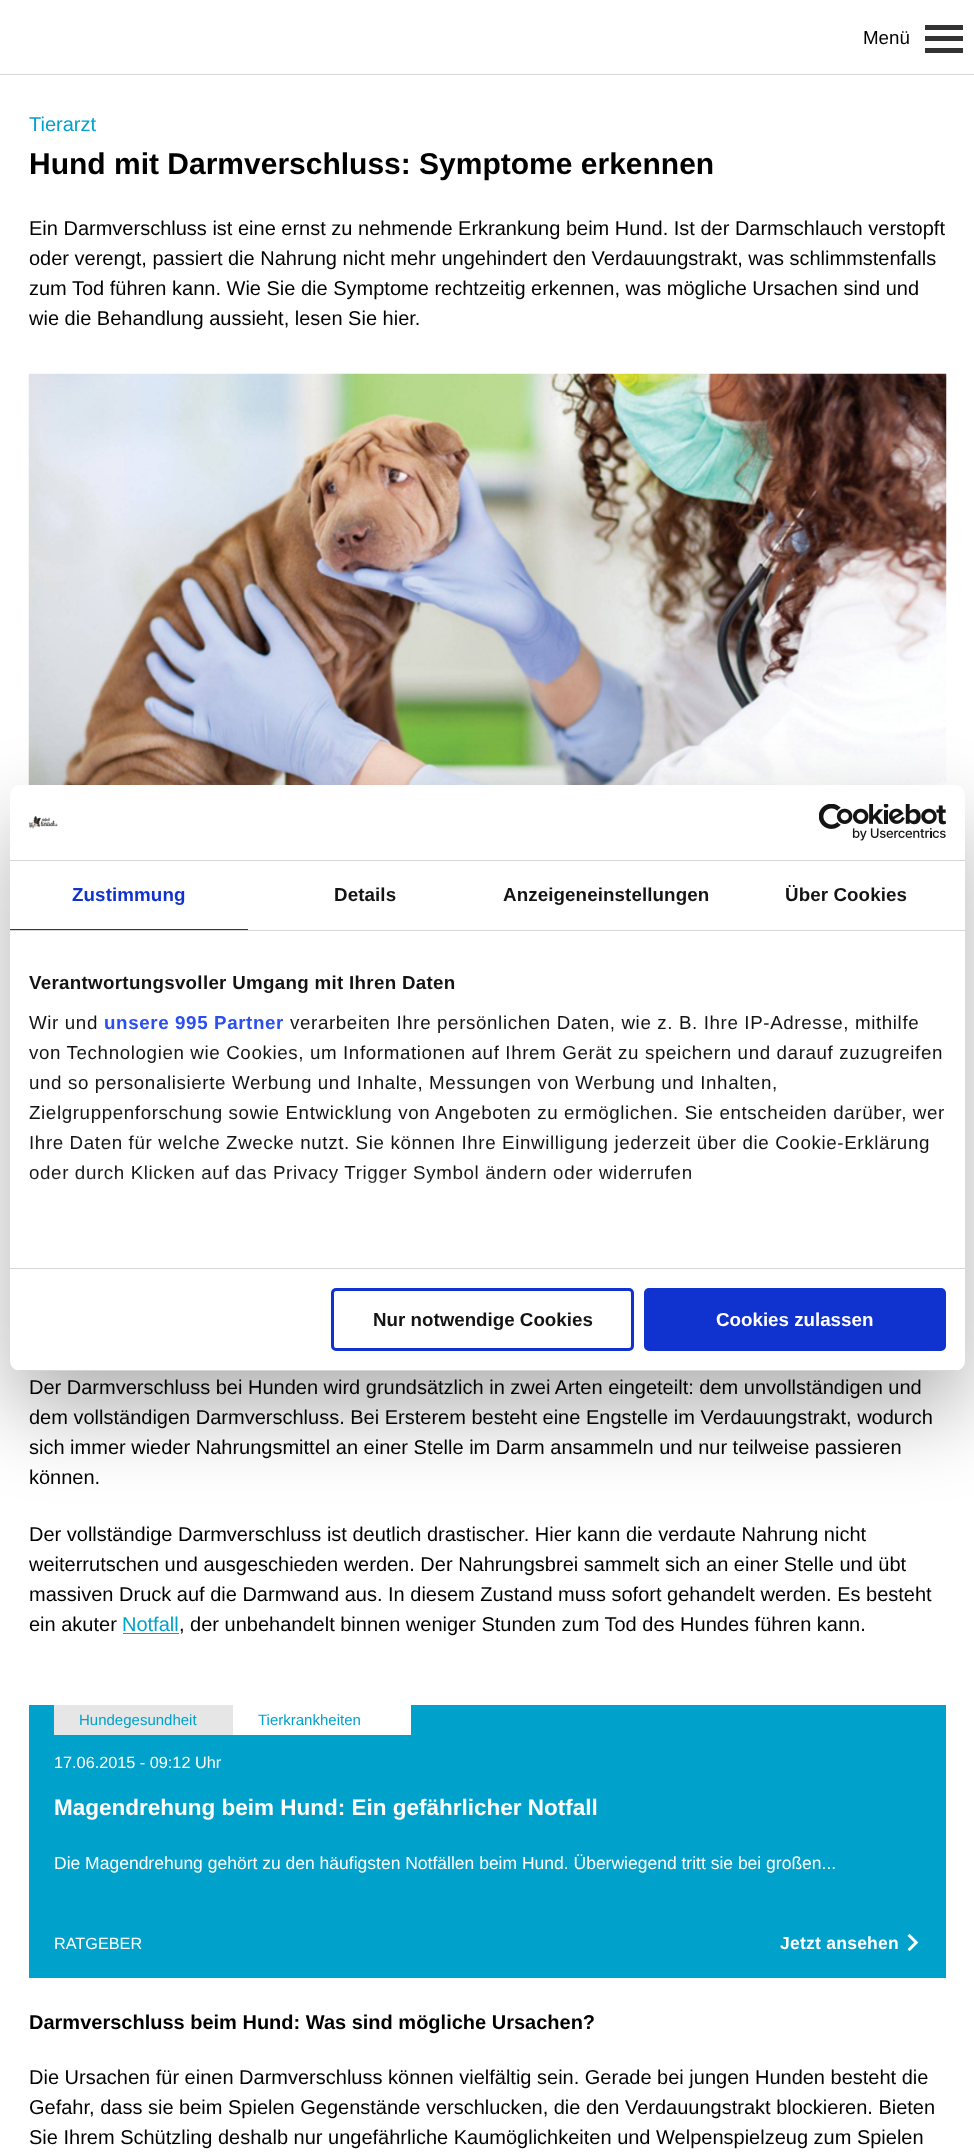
<?xml version="1.0" encoding="UTF-8"?>
<svg xmlns="http://www.w3.org/2000/svg" xmlns:xlink="http://www.w3.org/1999/xlink" width="974" height="2155">
  <defs>
    <clipPath id="clip1"><rect x="10" y="785" width="955" height="586" rx="10" /></clipPath>
    <linearGradient id="g1" gradientUnits="userSpaceOnUse" x1="479" y1="1267" x2="479" y2="1173"><stop offset="0" stop-color="#ffffff" /><stop offset="0.5" stop-color="#ffffff" stop-opacity="0.8" /><stop offset="1" stop-color="#ffffff" stop-opacity="0" /></linearGradient>
  </defs>
  <rect width="100%" height="100%" fill="#ffffff" />
  <rect y="74" width="974" height="1" fill="#d8d8d8" />
  <rect x="925" y="25" width="38" height="5" fill="#333333" />
  <rect x="925" y="36" width="38" height="5" fill="#333333" />
  <rect x="925" y="48" width="38" height="5" fill="#333333" />
  <image x="28" y="373" width="919" height="412" xlink:href="image1.png" />
  <rect x="123" y="1633" width="56" height="1" fill="#00a1cb" />
  <rect x="29" y="1705" width="917" height="273" fill="#00a1cb" />
  <rect x="54" y="1705" width="179" height="30" fill="#e6e6e6" />
  <rect x="233" y="1705" width="178" height="30" fill="#ffffff" />
  <image x="907" y="1933" width="12" height="19" xlink:href="image2.png" />
  <rect x="10" y="825" width="955" height="586" rx="10" fill="#000000" fill-opacity="0.3" filter="blur(42.5px)" />
  <rect x="10" y="785" width="955" height="586" rx="10" fill="#ffffff" />
  <rect x="10" y="860" width="955" height="1" fill="#d6d6d6" />
  <image x="28" y="816" width="30" height="13" xlink:href="image3.png" />
  <image x="819" y="804" width="127" height="37" xlink:href="image4.png" />
  <rect x="10" y="930" width="955" height="1" fill="#d6d6d6" />
  <rect x="10" y="929" width="238" height="1" fill="#1032cf" />
  <rect x="10" y="1268" width="955" height="1" fill="#d6d6d6" />
  <g clip-path="url(#clip1)">
    <rect x="10" y="1370" width="955" height="1" fill="#d6d6d6" />
  </g>
  <rect x="332.5" y="1289.5" width="300" height="60" rx="3.5" fill="none" stroke="#1032cf" stroke-width="3" />
  <rect x="645.5" y="1289.5" width="299" height="60" rx="3.5" fill="#1032cf" stroke="#1032cf" stroke-width="3" />
  <text x="863" y="44" style="font-family: Liberation Sans; font-size: 18.75px; fill: #000000">Menü</text>
  <text x="29" y="131" style="font-family: Liberation Sans; font-size: 20px; fill: #00a1cb">Tierarzt</text>
  <text x="29" y="174" style="font-family: Liberation Sans; font-size: 30px; font-weight: bold; fill: #000000">Hund mit Darmverschluss: Symptome erkennen</text>
  <text x="29" y="235" style="font-family: Liberation Sans; font-size: 20px; fill: #000000">Ein Darmverschluss ist eine ernst zu nehmende Erkrankung beim Hund. Ist der Darmschlauch verstopft</text>
  <text x="29" y="265" style="font-family: Liberation Sans; font-size: 20px; fill: #000000">oder verengt, passiert die Nahrung nicht mehr ungehindert den Verdauungstrakt, was schlimmstenfalls</text>
  <text x="29" y="295" style="font-family: Liberation Sans; font-size: 20px; fill: #000000">zum Tod führen kann. Wie Sie die Symptome rechtzeitig erkennen, was mögliche Ursachen sind und</text>
  <text x="29" y="325" style="font-family: Liberation Sans; font-size: 20px; fill: #000000">wie die Behandlung aussieht, lesen Sie hier.</text>
  <text x="29" y="1394" style="font-family: Liberation Sans; font-size: 20px; fill: #000000">Der Darmverschluss bei Hunden wird grundsätzlich in zwei Arten eingeteilt: dem unvollständigen und</text>
  <text x="29" y="1424" style="font-family: Liberation Sans; font-size: 20px; fill: #000000">dem vollständigen Darmverschluss. Bei Ersterem besteht eine Engstelle im Verdauungstrakt, wodurch</text>
  <text x="29" y="1454" style="font-family: Liberation Sans; font-size: 20px; fill: #000000">sich immer wieder Nahrungsmittel an einer Stelle im Darm ansammeln und nur teilweise passieren</text>
  <text x="29" y="1484" style="font-family: Liberation Sans; font-size: 20px; fill: #000000">können.</text>
  <text x="29" y="1541" style="font-family: Liberation Sans; font-size: 20px; fill: #000000">Der vollständige Darmverschluss ist deutlich drastischer. Hier kann die verdaute Nahrung nicht</text>
  <text x="29" y="1571" style="font-family: Liberation Sans; font-size: 20px; fill: #000000">weiterrutschen und ausgeschieden werden. Der Nahrungsbrei sammelt sich an einer Stelle und übt</text>
  <text x="29" y="1601" style="font-family: Liberation Sans; font-size: 20px; fill: #000000">massiven Druck auf die Darmwand aus. In diesem Zustand muss sofort gehandelt werden. Es besteht</text>
  <text x="29" y="1631" style="font-family: Liberation Sans; font-size: 20px; fill: #000000">ein akuter</text>
  <text x="122" y="1631" style="font-family: Liberation Sans; font-size: 20px; fill: #00a1cb">Notfall</text>
  <text x="179" y="1631" style="font-family: Liberation Sans; font-size: 20px; fill: #000000">, der unbehandelt binnen weniger Stunden zum Tod des Hundes führen kann.</text>
  <text x="79" y="1725" style="font-family: Liberation Sans; font-size: 15px; fill: #00a1cb">Hundegesundheit</text>
  <text x="258" y="1725" style="font-family: Liberation Sans; font-size: 15px; fill: #00a1cb">Tierkrankheiten</text>
  <text x="54" y="1768" style="font-family: Liberation Sans; font-size: 16.25px; fill: #ffffff">17.06.2015 - 09:12 Uhr</text>
  <text x="54" y="1815" style="font-family: Liberation Sans; font-size: 22.5px; font-weight: bold; fill: #ffffff">Magendrehung beim Hund: Ein gefährlicher Notfall</text>
  <text x="54" y="1869" style="font-family: Liberation Sans; font-size: 17.5px; fill: #ffffff">Die Magendrehung gehört zu den häufigsten Notfällen beim Hund. Überwiegend tritt sie bei großen...</text>
  <text x="54" y="1949" style="font-family: Liberation Sans; font-size: 16.25px; fill: #ffffff">RATGEBER</text>
  <text x="780" y="1949" style="font-family: Liberation Sans; font-size: 17.5px; font-weight: bold; letter-spacing: 0.25px; fill: #ffffff">Jetzt ansehen</text>
  <text x="29" y="2029" style="font-family: Liberation Sans; font-size: 20px; font-weight: bold; fill: #000000">Darmverschluss beim Hund: Was sind mögliche Ursachen?</text>
  <text x="29" y="2084" style="font-family: Liberation Sans; font-size: 20px; fill: #000000">Die Ursachen für einen Darmverschluss können vielfältig sein. Gerade bei jungen Hunden besteht die</text>
  <text x="29" y="2114" style="font-family: Liberation Sans; font-size: 20px; fill: #000000">Gefahr, dass sie beim Spielen Gegenstände verschlucken, die den Verdauungstrakt blockieren. Bieten</text>
  <text x="29" y="2144" style="font-family: Liberation Sans; font-size: 20px; fill: #000000">Sie Ihrem Schützling deshalb nur ungefährliche Kaumöglichkeiten und Welpenspielzeug zum Spielen</text>
  <text x="72" y="901" style="font-family: Liberation Sans; font-size: 18.75px; font-weight: bold; letter-spacing: 0.1px; fill: #1032cf">Zustimmung</text>
  <text x="334" y="901" style="font-family: Liberation Sans; font-size: 18.75px; font-weight: bold; letter-spacing: 0.1px; fill: #141414">Details</text>
  <text x="503" y="901" style="font-family: Liberation Sans; font-size: 18.75px; font-weight: bold; letter-spacing: 0.1px; fill: #141414">Anzeigeneinstellungen</text>
  <text x="785" y="901" style="font-family: Liberation Sans; font-size: 18.75px; font-weight: bold; letter-spacing: 0.1px; fill: #141414">Über Cookies</text>
  <text x="29" y="989" style="font-family: Liberation Sans; font-size: 18.75px; font-weight: bold; letter-spacing: 0.3px; fill: #141414">Verantwortungsvoller Umgang mit Ihren Daten</text>
  <text x="29" y="1029" style="font-family: Liberation Sans; font-size: 18.75px; letter-spacing: 0.62px; fill: #141414">Wir und</text>
  <text x="104" y="1029" style="font-family: Liberation Sans; font-size: 18.75px; font-weight: bold; letter-spacing: 0.62px; fill: #2a4eef">unsere 995 Partner</text>
  <text x="290" y="1029" style="font-family: Liberation Sans; font-size: 18.75px; letter-spacing: 0.62px; fill: #141414">verarbeiten Ihre persönlichen Daten, wie z. B. Ihre IP-Adresse, mithilfe</text>
  <text x="29" y="1059" style="font-family: Liberation Sans; font-size: 18.75px; letter-spacing: 0.62px; fill: #141414">von Technologien wie Cookies, um Informationen auf Ihrem Gerät zu speichern und darauf zuzugreifen</text>
  <text x="29" y="1089" style="font-family: Liberation Sans; font-size: 18.75px; letter-spacing: 0.62px; fill: #141414">und so personalisierte Werbung und Inhalte, Messungen von Werbung und Inhalten,</text>
  <text x="29" y="1119" style="font-family: Liberation Sans; font-size: 18.75px; letter-spacing: 0.62px; fill: #141414">Zielgruppenforschung sowie Entwicklung von Angeboten zu ermöglichen. Sie entscheiden darüber, wer</text>
  <text x="29" y="1149" style="font-family: Liberation Sans; font-size: 18.75px; letter-spacing: 0.62px; fill: #141414">Ihre Daten für welche Zwecke nutzt. Sie können Ihre Einwilligung jederzeit über die Cookie-Erklärung</text>
  <text x="29" y="1179" style="font-family: Liberation Sans; font-size: 18.75px; letter-spacing: 0.62px; fill: #141414">oder durch Klicken auf das Privacy Trigger Symbol ändern oder widerrufen</text>
  <rect x="29" y="1174" width="662" height="9" fill="url(#g1)" />
  <text x="373" y="1326" style="font-family: Liberation Sans; font-size: 18.75px; font-weight: bold; fill: #141414">Nur notwendige Cookies</text>
  <text x="716" y="1326" style="font-family: Liberation Sans; font-size: 18.75px; font-weight: bold; fill: #ffffff">Cookies zulassen</text>
</svg>
